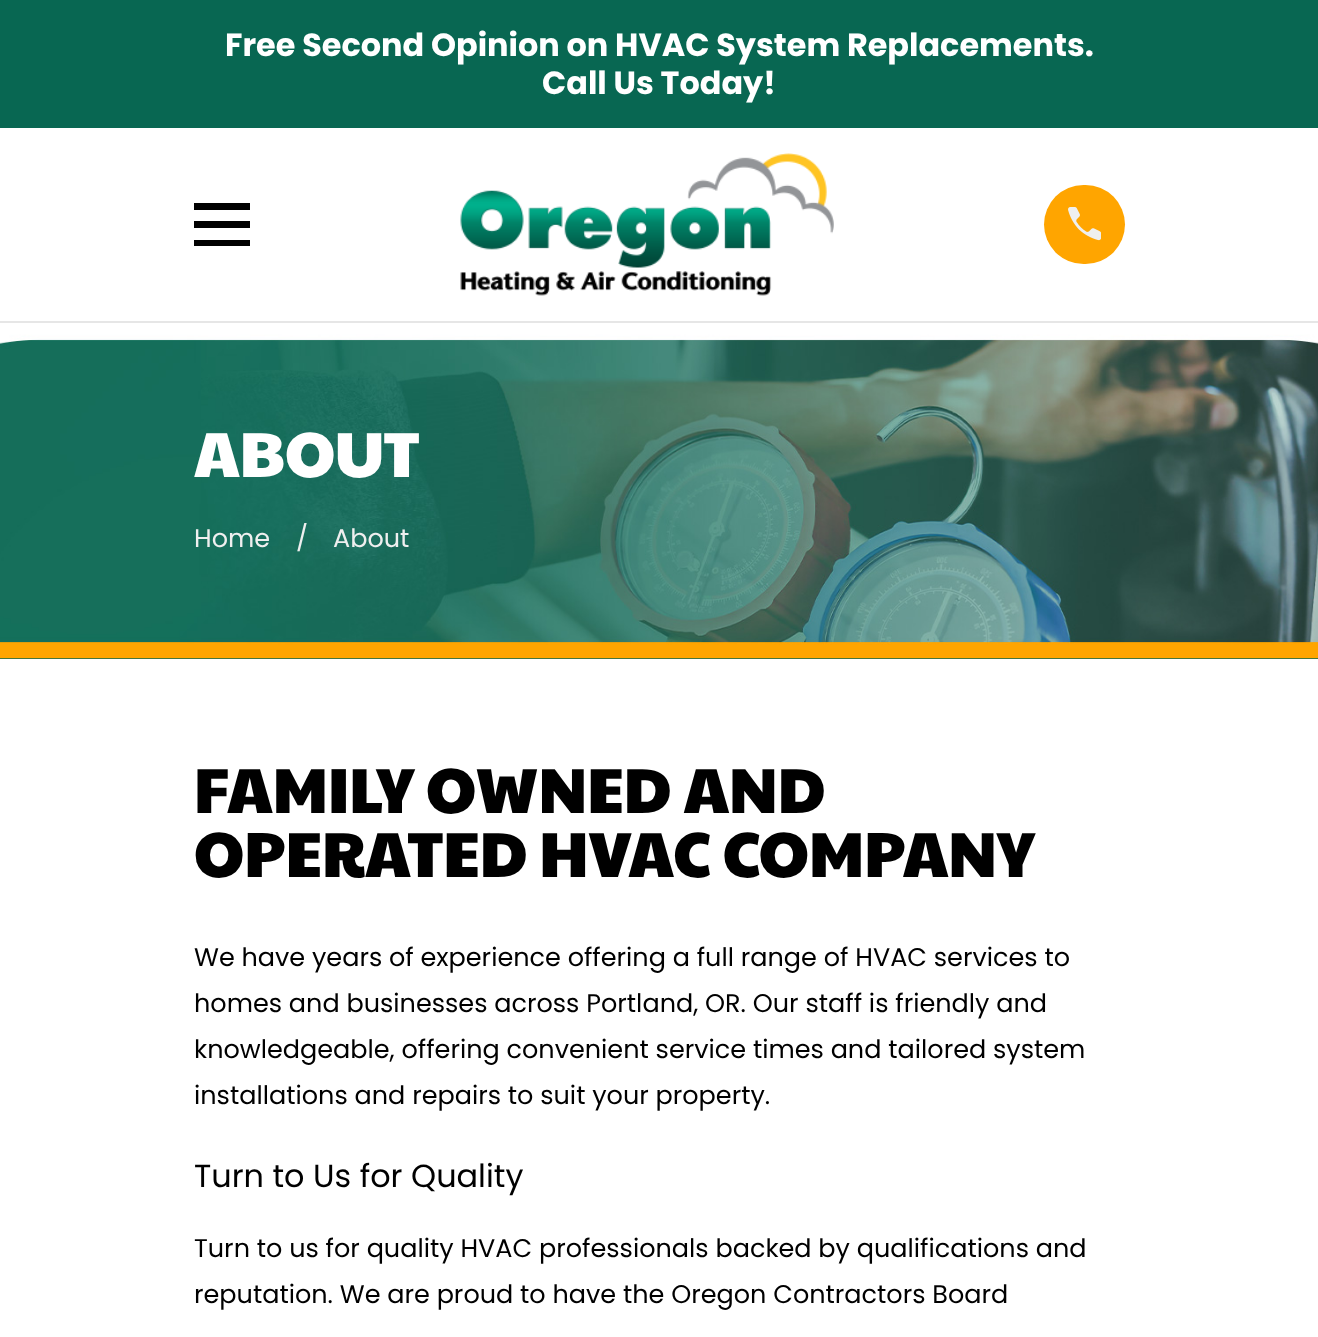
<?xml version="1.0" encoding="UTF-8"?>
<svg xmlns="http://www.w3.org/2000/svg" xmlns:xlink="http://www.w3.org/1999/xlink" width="1318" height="1337">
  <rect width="100%" height="100%" fill="#ffffff" />
  <rect width="1318" height="128" fill="#086752" />
  <rect y="321" width="1318" height="2" fill="#e6e6e6" />
  <path d="M 194 203 v 7 h 56 v -7 z m 0 18 v 7 h 56 v -7 z m 0 19 v 6 h 56 v -6 z" fill="#000000" />
  <image x="460" y="153" width="374" height="143" xlink:href="image1.png" />
  <rect x="1044" y="185" width="81" height="79" rx="39.5" fill="#ffa500" />
  <image x="1068" y="207" width="33" height="34" xlink:href="image2.png" />
  <rect y="658" width="1318" height="1" fill="#086752" />
  <image x="0" y="323" width="1318" height="336" xlink:href="image3.png" />
  <text x="225" y="56" style="font-family: Poppins; font-size: 31.9px; font-weight: bold; fill: #ffffff">Free Second Opinion on HVAC System Replacements.</text>
  <text x="542" y="94" style="font-family: Poppins; font-size: 31.9px; font-weight: bold; fill: #ffffff">Call Us Today!</text>
  <text x="194" y="477" style="font-family: Paytone One; font-size: 63.75px; fill: #ffffff">ABOUT</text>
  <text x="194" y="547" style="font-family: Poppins; font-size: 25.5px; fill: #efefef">Home</text>
  <text x="296" y="547" style="font-family: Poppins; font-size: 25.5px; fill: #efefef">/</text>
  <text x="333" y="547" style="font-family: Poppins; font-size: 25.5px; fill: #efefef">About</text>
  <text x="194" y="813" style="font-family: Paytone One; font-size: 63.75px; fill: #000000">FAMILY OWNED AND</text>
  <text x="194" y="877" style="font-family: Paytone One; font-size: 63.75px; fill: #000000">OPERATED HVAC COMPANY</text>
  <text x="194" y="966" style="font-family: Poppins; font-size: 25.5px; fill: #000000">We have years of experience offering a full range of HVAC services to</text>
  <text x="194" y="1012" style="font-family: Poppins; font-size: 25.5px; fill: #000000">homes and businesses across Portland, OR. Our staff is friendly and</text>
  <text x="194" y="1058" style="font-family: Poppins; font-size: 25.5px; fill: #000000">knowledgeable, offering convenient service times and tailored system</text>
  <text x="194" y="1104" style="font-family: Poppins; font-size: 25.5px; fill: #000000">installations and repairs to suit your property.</text>
  <text x="194" y="1187" style="font-family: Poppins; font-size: 31.9px; fill: #000000">Turn to Us for Quality</text>
  <text x="194" y="1257" style="font-family: Poppins; font-size: 25.5px; fill: #000000">Turn to us for quality HVAC professionals backed by qualifications and</text>
  <text x="194" y="1303" style="font-family: Poppins; font-size: 25.5px; fill: #000000">reputation. We are proud to have the Oregon Contractors Board</text>
</svg>
